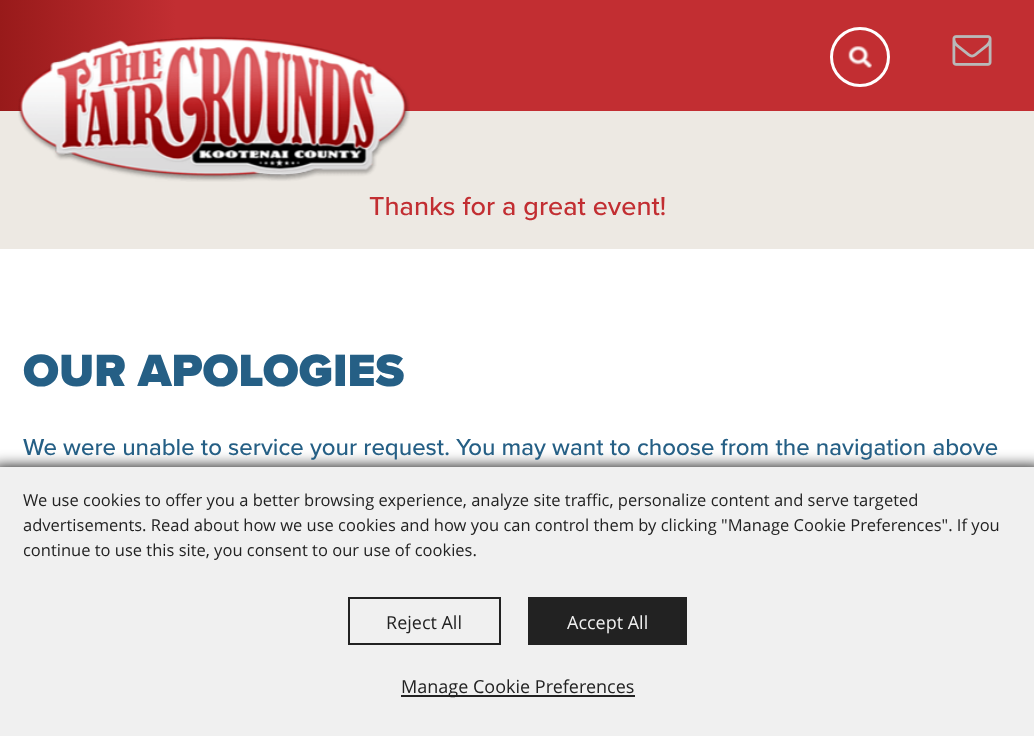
<?xml version="1.0" encoding="UTF-8"?>
<svg xmlns="http://www.w3.org/2000/svg" xmlns:xlink="http://www.w3.org/1999/xlink" width="1034" height="736">
  <defs>
    <linearGradient id="g1" gradientUnits="userSpaceOnUse" x1="0" y1="56" x2="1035" y2="55"><stop offset="0" stop-color="#981a1a" /><stop offset="0.17" stop-color="#c22e32" /><stop offset="0.82" stop-color="#c22e32" /></linearGradient>
  </defs>
  <rect width="100%" height="100%" fill="#ffffff" />
  <rect width="1034" height="111" fill="url(#g1)" />
  <rect y="111" width="1034" height="138" fill="#ede9e3" />
  <image x="18" y="36" width="392" height="146" xlink:href="image1.png" />
  <circle cx="860" cy="57" r="28.5" fill="none" stroke="#ffffff" stroke-width="3" />
  <image x="848" y="46" width="24" height="22" xlink:href="image2.png" />
  <image x="952" y="35" width="40" height="31" xlink:href="image3.png" />
  <rect x="-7" y="467" width="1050" height="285" fill="#000000" filter="blur(7.5px)" />
  <rect y="467" width="1034" height="269" fill="#f0f0f0" />
  <rect x="349" y="598" width="151" height="46" fill="none" stroke="#222222" stroke-width="2" />
  <rect x="528" y="597" width="159" height="48" fill="#222222" />
  <rect x="401" y="695" width="234" height="2" fill="#222222" />
  <text x="369" y="215" style="font-family: Proxima Nova; font-size: 27px; font-weight: 500; fill: #c22e32">Thanks for a great event!</text>
  <text x="23" y="386" style="font-family: Proxima Nova; font-size: 47px; font-weight: 900; fill: #255f85">OUR APOLOGIES</text>
  <text x="23" y="455" style="font-family: Proxima Nova; font-size: 24px; font-weight: 500; fill: #255f85">We were unable to service your request. You may want to choose from the navigation above</text>
  <text x="23" y="506" style="font-family: Open Sans; font-size: 16.5px; fill: #222222">We use cookies to offer you a better browsing experience, analyze site traffic, personalize content and serve targeted</text>
  <text x="23" y="531" style="font-family: Open Sans; font-size: 16.5px; fill: #222222">advertisements. Read about how we use cookies and how you can control them by clicking "Manage Cookie Preferences". If you</text>
  <text x="23" y="556" style="font-family: Open Sans; font-size: 16.5px; fill: #222222">continue to use this site, you consent to our use of cookies.</text>
  <text x="386" y="629" style="font-family: Open Sans; font-size: 18px; fill: #222222">Reject All</text>
  <text x="567" y="629" style="font-family: Open Sans; font-size: 18px; fill: #f0f0f0">Accept All</text>
  <text x="401" y="693" style="font-family: Open Sans; font-size: 18px; fill: #222222">Manage Cookie Preferences</text>
</svg>
